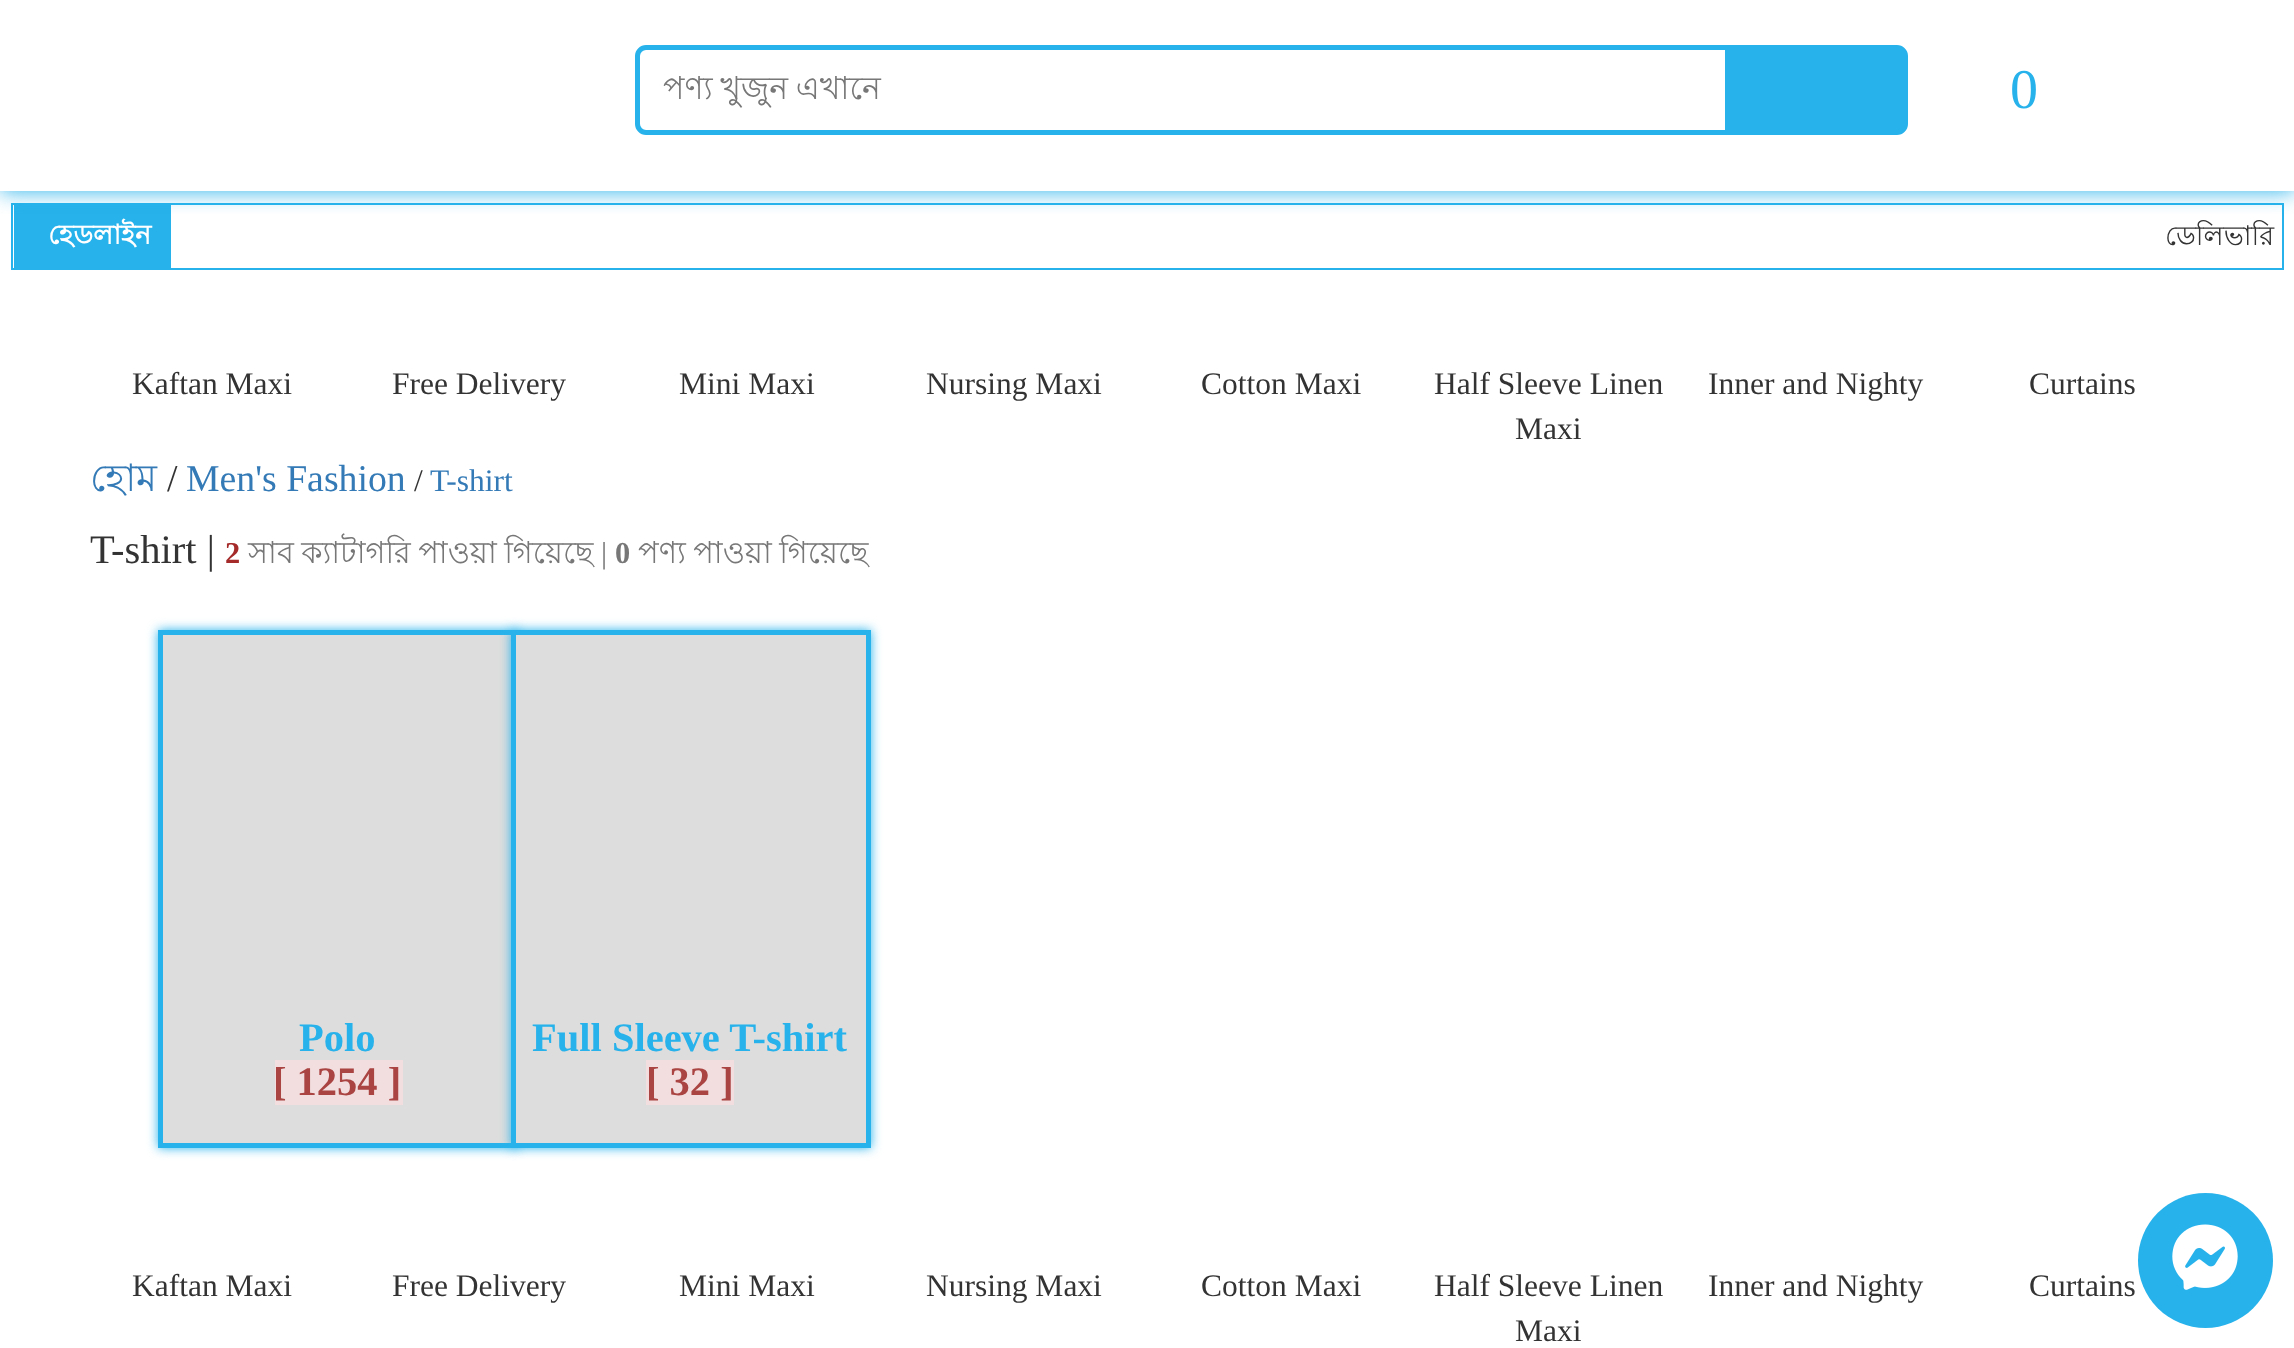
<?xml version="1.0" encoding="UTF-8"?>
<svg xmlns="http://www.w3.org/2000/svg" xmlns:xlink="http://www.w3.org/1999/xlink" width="2294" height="1348">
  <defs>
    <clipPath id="clip1"><rect x="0" y="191" width="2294" height="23" /></clipPath>
  </defs>
  <rect width="100%" height="100%" fill="#ffffff" />
  <rect x="11" y="203" width="2273" height="2" fill="#27b2eb" />
  <rect x="2282" y="203" width="2" height="67" fill="#27b2eb" />
  <rect x="11" y="268" width="2273" height="2" fill="#27b2eb" />
  <rect x="11" y="203" width="2" height="67" fill="#27b2eb" />
  <rect x="14" y="205" width="157" height="63" fill="#27b2eb" />
  <g clip-path="url(#clip1)">
    <rect width="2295" height="191" fill="#27b2eb" filter="blur(11px)" />
  </g>
  <path d="M 646 47.5 h 1081.5 v 85 h -1081.5 c -4.5 0 -8.5 -4 -8.5 -8.5 v -68 c 0 -4.5 4 -8.5 8.5 -8.5 z" fill="none" stroke="#27b2eb" stroke-width="5" />
  <path d="M 1732.5 47.5 h 164.5 c 4.5 0 8.5 4 8.5 8.5 v 68 c 0 4.5 -4 8.5 -8.5 8.5 h -164.5 z" fill="#27b2eb" stroke="#27b2eb" stroke-width="5" />
  <rect x="158" y="630" width="360" height="518" fill="#27b2eb" filter="blur(5.5px)" />
  <rect x="163" y="635" width="348" height="508" fill="#dddddd" />
  <rect x="160.5" y="632.5" width="355" height="513" fill="none" stroke="#27b2eb" stroke-width="5" />
  <rect x="275" y="1060" width="128" height="45" fill="#f2dede" />
  <rect x="511" y="630" width="360" height="518" fill="#27b2eb" filter="blur(5.5px)" />
  <rect x="513.5" y="632.5" width="355" height="513" fill="#dddddd" stroke="#27b2eb" stroke-width="5" />
  <rect x="646" y="1060" width="88" height="45" fill="#f2dede" />
  <circle cx="2205.5" cy="1260.5" r="67.5" fill="#27b2eb" />
  <image x="2172" y="1224" width="66" height="66" xlink:href="image1.png" />
  <text x="663" y="99" word-spacing="-1" style="font-family: Lohit Bengali; font-size: 31.5px; fill: #777777">পণ্য খুজুন এখানে</text>
  <text x="2010" y="108" style="font-family: Liberation Serif; font-size: 56px; fill: #27b2eb">0</text>
  <text x="48" y="244" style="font-family: Lohit Bengali; font-size: 27px; font-weight: bold; fill: #ffffff">হেডলাইন</text>
  <text x="2165" y="245" word-spacing="-1" style="font-family: Lohit Bengali; font-size: 27px; fill: #333333">ডেলিভারি</text>
  <text x="132" y="394" style="font-family: Liberation Serif; font-size: 31.5px; fill: #333333">Kaftan Maxi</text>
  <text x="392" y="394" style="font-family: Liberation Serif; font-size: 31.5px; fill: #333333">Free Delivery</text>
  <text x="679" y="394" style="font-family: Liberation Serif; font-size: 31.5px; fill: #333333">Mini Maxi</text>
  <text x="926" y="394" style="font-family: Liberation Serif; font-size: 31.5px; fill: #333333">Nursing Maxi</text>
  <text x="1201" y="394" style="font-family: Liberation Serif; font-size: 31.5px; fill: #333333">Cotton Maxi</text>
  <text x="1434" y="394" style="font-family: Liberation Serif; font-size: 31.5px; fill: #333333">Half Sleeve Linen</text>
  <text x="1515" y="439" style="font-family: Liberation Serif; font-size: 31.5px; fill: #333333">Maxi</text>
  <text x="1708" y="394" style="font-family: Liberation Serif; font-size: 31.5px; fill: #333333">Inner and Nighty</text>
  <text x="2029" y="394" style="font-family: Liberation Serif; font-size: 31.5px; fill: #333333">Curtains</text>
  <text x="90" y="491" style="font-family: Lohit Bengali; font-size: 37.75px; fill: #337ab7">হোম</text>
  <text x="167" y="491" style="font-family: Liberation Serif; font-size: 37.75px; fill: #333333">/</text>
  <text x="186" y="491" style="font-family: Liberation Serif; font-size: 37.75px; fill: #337ab7">Men's Fashion</text>
  <text x="414" y="491" style="font-family: Liberation Serif; font-size: 31.5px; fill: #333333">/</text>
  <text x="430" y="491" style="font-family: Liberation Serif; font-size: 31.5px; fill: #337ab7">T-shirt</text>
  <text x="90" y="563" style="font-family: Liberation Serif; font-size: 40.5px; fill: #333333">T-shirt |</text>
  <text x="225" y="563" style="font-family: Liberation Serif; font-size: 30.4px; font-weight: bold; fill: #a52a2a">2</text>
  <text x="248" y="563" word-spacing="-1" style="font-family: Lohit Bengali; font-size: 30.4px; fill: #777777">সাব ক্যাটাগরি পাওয়া গিয়েছে</text>
  <text x="601" y="563" style="font-family: Liberation Serif; font-size: 30.4px; fill: #777777">|</text>
  <text x="615" y="563" style="font-family: Liberation Serif; font-size: 30.4px; font-weight: bold; fill: #777777">0</text>
  <text x="638" y="563" word-spacing="-1" style="font-family: Lohit Bengali; font-size: 30.4px; fill: #777777">পণ্য পাওয়া গিয়েছে</text>
  <text x="299" y="1051" style="font-family: Liberation Serif; font-size: 40.5px; font-weight: bold; fill: #27b2eb">Polo</text>
  <text x="273" y="1095" style="font-family: Liberation Serif; font-size: 40.5px; font-weight: bold; fill: #a94442">[ 1254 ]</text>
  <text x="532" y="1051" style="font-family: Liberation Serif; font-size: 40.5px; font-weight: bold; fill: #27b2eb">Full Sleeve T-shirt</text>
  <text x="646" y="1095" style="font-family: Liberation Serif; font-size: 40.5px; font-weight: bold; fill: #a94442">[ 32 ]</text>
  <text x="132" y="1296" style="font-family: Liberation Serif; font-size: 31.5px; fill: #333333">Kaftan Maxi</text>
  <text x="392" y="1296" style="font-family: Liberation Serif; font-size: 31.5px; fill: #333333">Free Delivery</text>
  <text x="679" y="1296" style="font-family: Liberation Serif; font-size: 31.5px; fill: #333333">Mini Maxi</text>
  <text x="926" y="1296" style="font-family: Liberation Serif; font-size: 31.5px; fill: #333333">Nursing Maxi</text>
  <text x="1201" y="1296" style="font-family: Liberation Serif; font-size: 31.5px; fill: #333333">Cotton Maxi</text>
  <text x="1434" y="1296" style="font-family: Liberation Serif; font-size: 31.5px; fill: #333333">Half Sleeve Linen</text>
  <text x="1515" y="1341" style="font-family: Liberation Serif; font-size: 31.5px; fill: #333333">Maxi</text>
  <text x="1708" y="1296" style="font-family: Liberation Serif; font-size: 31.5px; fill: #333333">Inner and Nighty</text>
  <text x="2029" y="1296" style="font-family: Liberation Serif; font-size: 31.5px; fill: #333333">Curtains</text>
</svg>
